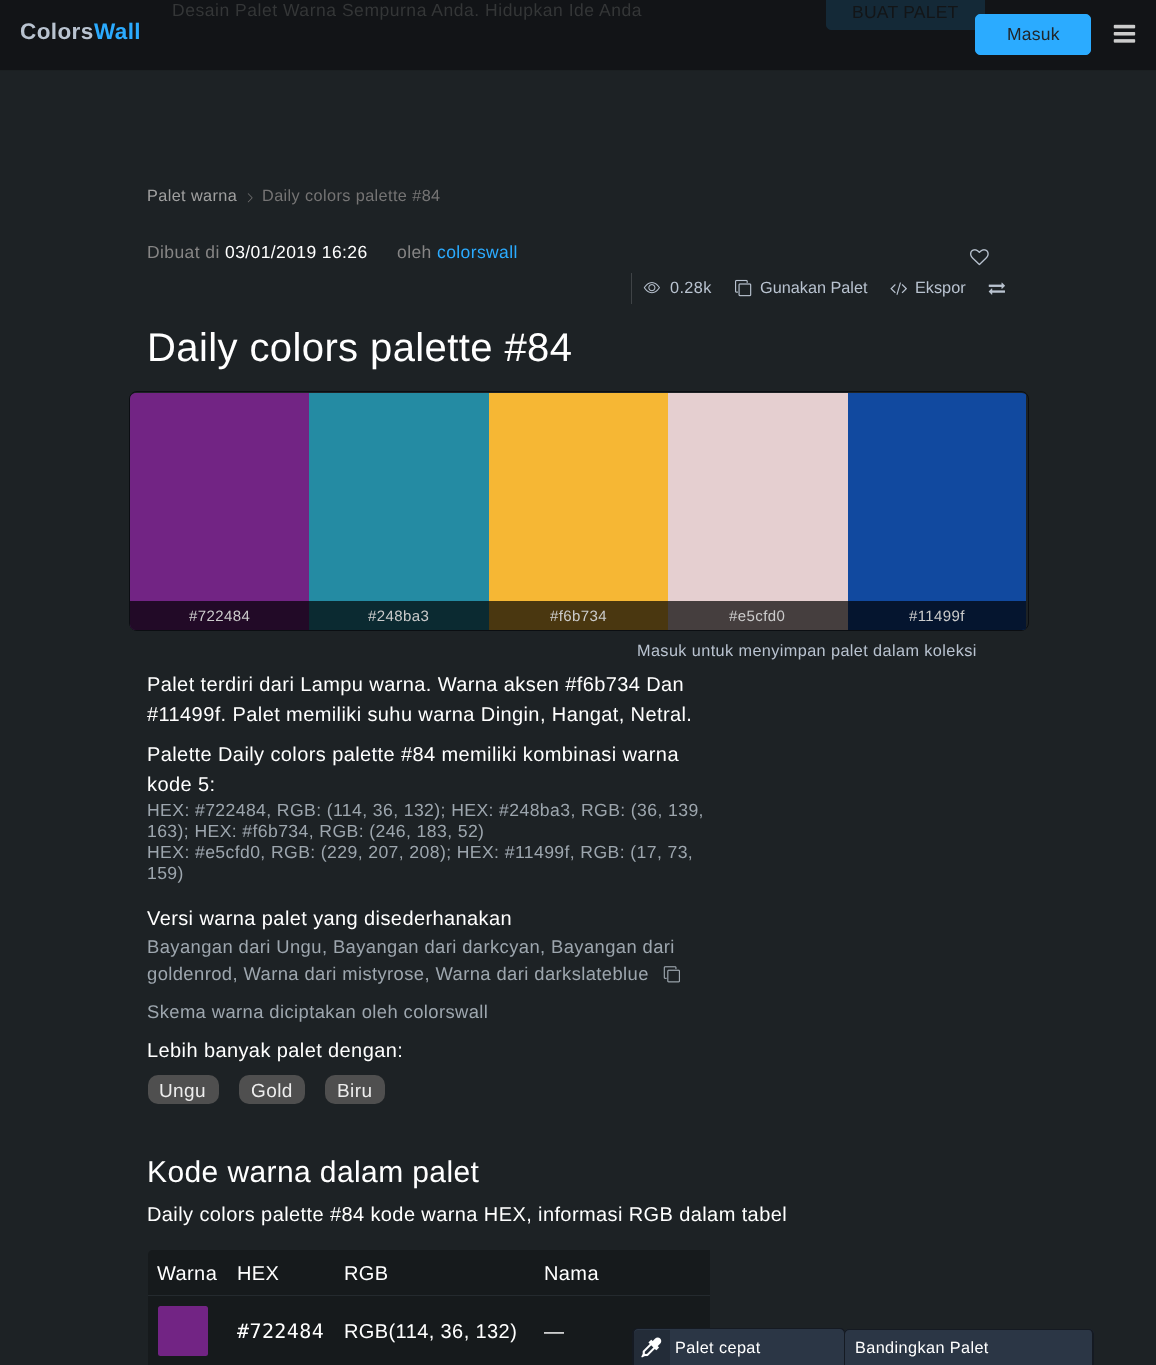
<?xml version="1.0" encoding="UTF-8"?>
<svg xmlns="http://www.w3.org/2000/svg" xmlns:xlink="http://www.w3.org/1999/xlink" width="1156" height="1365">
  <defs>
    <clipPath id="clip1"><rect x="130" y="393" width="898" height="237" rx="6" /></clipPath>
  </defs>
  <rect width="100%" height="100%" fill="#1d2225" />
  <rect width="1156" height="70" fill="#121417" />
  <rect x="826.5" y="-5.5" width="158" height="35" rx="4.5" fill="#142937" stroke="#142937" />
  <image x="247" y="193" width="6" height="10" xlink:href="image1.png" />
  <image x="970" y="249" width="19" height="17" xlink:href="image2.png" />
  <rect x="631" y="273" width="1" height="31" fill="#3f4346" />
  <image x="643" y="282" width="17" height="12" xlink:href="image3.png" />
  <image x="735" y="279" width="17" height="18" xlink:href="image4.png" />
  <image x="890" y="282" width="17" height="13" xlink:href="image5.png" />
  <image x="988" y="282" width="17" height="13" xlink:href="image6.png" />
  <rect x="129.5" y="391.5" width="899" height="239" rx="7.5" fill="none" stroke="#0b0e12" />
  <path d="M 136 393 h 173 v 237 h -173 c -3.5 0 -6 -2.5 -6 -6 v -225 c 0 -3.5 2.5 -6 6 -6 z" fill="#722484" />
  <path d="M 130 601 h 179 v 29 h -173 c -3.5 0 -6 -2.5 -6 -6 z" fill="#000000" fill-opacity="0.7" />
  <rect x="309" y="393" width="180" height="208" fill="#248ba3" />
  <rect x="309" y="601" width="180" height="29" fill="#0b2a31" />
  <rect x="489" y="393" width="179" height="208" fill="#f6b734" />
  <rect x="489" y="601" width="179" height="29" fill="#4a3710" />
  <rect x="668" y="393" width="180" height="208" fill="#e5cfd0" />
  <rect x="668" y="601" width="180" height="29" fill="#453e3e" />
  <g clip-path="url(#clip1)">
    <rect x="848" y="393" width="178" height="237" fill="#11499f" />
    <rect x="848" y="601" width="178" height="29" fill="#000000" fill-opacity="0.7" />
  </g>
  <image x="663" y="966" width="17" height="17" xlink:href="image7.png" />
  <rect x="148" y="1075" width="71" height="29" rx="10" fill="#4f4f4f" />
  <rect x="239" y="1075" width="66" height="29" rx="10" fill="#4f4f4f" />
  <rect x="325" y="1075" width="60" height="29" rx="10" fill="#4f4f4f" />
  <path d="M 153 1250 h 557 v 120 h -557 c -3 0 -5 -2 -5 -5 v -110 c 0 -3 2 -5 5 -5 z" fill="#161a1c" />
  <rect x="158" y="1306" width="50" height="50" rx="2.5" fill="#722484" />
  <rect x="148" y="1295" width="562" height="1" fill="#242a2e" />
  <rect x="-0.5" y="-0.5" width="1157" height="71" fill="none" stroke="#1b2022" />
  <rect x="975.5" y="14.5" width="115" height="40" rx="4.5" fill="#2babff" stroke="#2babff" />
  <image x="1113" y="24" width="23" height="19" xlink:href="image8.png" />
  <path d="M 849 1329 h 240 c 3 0 5 2 5 5 v 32 h -250 v -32 c 0 -3 2 -5 5 -5 z" fill="#2b3645" />
  <path d="M 849 1329 h 240 c 3 0 5 2 5 5 v 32 h -250 v -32 c 0 -3 2 -5 5 -5 z m 0 1 h 240 c 2 0 3 2 3 4 v 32 h -247 v -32 c 0 -2 2 -4 4 -4 z" fill="#151a22" fill-rule="evenodd" />
  <path d="M 638 1329 h 202 c 3 0 5 2 5 5 v 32 h -212 v -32 c 0 -3 2 -5 5 -5 z" fill="#2b3645" />
  <path d="M 638 1328 h 202 c 3 0 5 2 5 5 v 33 h -213 v -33 c 0 -3 3 -5 6 -5 z m 0 1 h 202 c 2 0 4 2 4 4 v 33 h -210 v -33 c 0 -2 1 -4 4 -4 z" fill="#151a22" fill-rule="evenodd" />
  <path d="M 638 1330 h 32 v 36 h -36 v -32 c 0 -2 2 -4 4 -4 z" fill="#232c38" />
  <image x="641" y="1337" width="21" height="21" xlink:href="image9.png" />
  <text x="172" y="16" style="font-family: Liberation Sans; font-size: 17.5px; letter-spacing: 0.53px; fill: #343637">Desain Palet Warna Sempurna Anda. Hidupkan Ide Anda</text>
  <text x="852" y="18" style="font-family: Liberation Sans; font-size: 17.5px; letter-spacing: 0.25px; fill: #131517">BUAT PALET</text>
  <text x="147" y="201" style="font-family: Liberation Sans; font-size: 16.25px; letter-spacing: 0.4px; fill: #a0a0a0">Palet warna</text>
  <text x="262" y="201" style="font-family: Liberation Sans; font-size: 16.25px; letter-spacing: 0.4px; fill: #757474">Daily colors palette #84</text>
  <text x="147" y="258" style="font-family: Liberation Sans; font-size: 17.5px; letter-spacing: 0.4px; fill: #868585">Dibuat di</text>
  <text x="225" y="258" style="font-family: Liberation Sans; font-size: 17.5px; letter-spacing: 0.4px; fill: #ffffff">03/01/2019 16:26</text>
  <text x="397" y="258" style="font-family: Liberation Sans; font-size: 17.5px; letter-spacing: 0.4px; fill: #868585">oleh</text>
  <text x="437" y="258" style="font-family: Liberation Sans; font-size: 17.5px; letter-spacing: 0.4px; fill: #2babff">colorswall</text>
  <text x="670" y="293" style="font-family: Liberation Sans; font-size: 16.25px; letter-spacing: 0.4px; fill: #b9c3d0">0.28k</text>
  <text x="760" y="293" style="font-family: Liberation Sans; font-size: 16.25px; fill: #b9c3d0">Gunakan Palet</text>
  <text x="915" y="293" style="font-family: Liberation Sans; font-size: 16.25px; fill: #b9c3d0">Ekspor</text>
  <text x="147" y="361" style="font-family: Liberation Sans; font-size: 40px; letter-spacing: 0.4px; fill: #ffffff">Daily colors palette #84</text>
  <text x="189" y="621" style="font-family: Liberation Sans; font-size: 15px; letter-spacing: 0.4px; fill: #cccccc">#722484</text>
  <text x="368" y="621" style="font-family: Liberation Sans; font-size: 15px; letter-spacing: 0.4px; fill: #cccccc">#248ba3</text>
  <text x="550" y="621" style="font-family: Liberation Sans; font-size: 15px; letter-spacing: 0.4px; fill: #cccccc">#f6b734</text>
  <text x="729" y="621" style="font-family: Liberation Sans; font-size: 15px; letter-spacing: 0.4px; fill: #cccccc">#e5cfd0</text>
  <text x="909" y="621" style="font-family: Liberation Sans; font-size: 15px; letter-spacing: 0.4px; fill: #cccccc">#11499f</text>
  <text x="637" y="656" style="font-family: Liberation Sans; font-size: 16.25px; letter-spacing: 0.4px; fill: #b9c3d0">Masuk untuk menyimpan palet dalam koleksi</text>
  <text x="147" y="691" style="font-family: Liberation Sans; font-size: 20px; letter-spacing: 0.4px; fill: #ffffff">Palet terdiri dari Lampu warna. Warna aksen #f6b734 Dan</text>
  <text x="147" y="721" style="font-family: Liberation Sans; font-size: 20px; letter-spacing: 0.4px; fill: #ffffff">#11499f. Palet memiliki suhu warna Dingin, Hangat, Netral.</text>
  <text x="147" y="761" style="font-family: Liberation Sans; font-size: 20px; letter-spacing: 0.4px; fill: #ffffff">Palette Daily colors palette #84 memiliki kombinasi warna</text>
  <text x="147" y="791" style="font-family: Liberation Sans; font-size: 20px; letter-spacing: 0.4px; fill: #ffffff">kode 5:</text>
  <text x="147" y="816" style="font-family: Liberation Sans; font-size: 17.6px; letter-spacing: 0.4px; fill: #9da6ae">HEX: #722484, RGB: (114, 36, 132); HEX: #248ba3, RGB: (36, 139,</text>
  <text x="147" y="837" style="font-family: Liberation Sans; font-size: 17.6px; letter-spacing: 0.4px; fill: #9da6ae">163); HEX: #f6b734, RGB: (246, 183, 52)</text>
  <text x="147" y="858" style="font-family: Liberation Sans; font-size: 17.6px; letter-spacing: 0.4px; fill: #9da6ae">HEX: #e5cfd0, RGB: (229, 207, 208); HEX: #11499f, RGB: (17, 73,</text>
  <text x="147" y="879" style="font-family: Liberation Sans; font-size: 17.6px; letter-spacing: 0.4px; fill: #9da6ae">159)</text>
  <text x="147" y="925" style="font-family: Liberation Sans; font-size: 20px; letter-spacing: 0.4px; fill: #ffffff">Versi warna palet yang disederhanakan</text>
  <text x="147" y="953" style="font-family: Liberation Sans; font-size: 18.4px; letter-spacing: 0.4px; fill: #9da6ae">Bayangan dari Ungu, Bayangan dari darkcyan, Bayangan dari</text>
  <text x="147" y="980" style="font-family: Liberation Sans; font-size: 18.4px; letter-spacing: 0.4px; fill: #9da6ae">goldenrod, Warna dari mistyrose, Warna dari darkslateblue</text>
  <text x="147" y="1018" style="font-family: Liberation Sans; font-size: 18.4px; letter-spacing: 0.4px; fill: #9da6ae">Skema warna diciptakan oleh colorswall</text>
  <text x="147" y="1057" style="font-family: Liberation Sans; font-size: 20px; letter-spacing: 0.4px; fill: #ffffff">Lebih banyak palet dengan:</text>
  <text x="159" y="1097" style="font-family: Liberation Sans; font-size: 19px; letter-spacing: 0.4px; fill: #ededed">Ungu</text>
  <text x="251" y="1097" style="font-family: Liberation Sans; font-size: 19px; letter-spacing: 0.4px; fill: #ededed">Gold</text>
  <text x="337" y="1097" style="font-family: Liberation Sans; font-size: 19px; letter-spacing: 0.4px; fill: #ededed">Biru</text>
  <text x="147" y="1182" style="font-family: Liberation Sans; font-size: 30px; letter-spacing: 0.4px; fill: #ffffff">Kode warna dalam palet</text>
  <text x="147" y="1221" style="font-family: Liberation Sans; font-size: 20px; letter-spacing: 0.4px; fill: #ffffff">Daily colors palette #84 kode warna HEX, informasi RGB dalam tabel</text>
  <text x="157" y="1280" style="font-family: Liberation Sans; font-size: 20px; letter-spacing: 0.4px; fill: #ffffff">Warna</text>
  <text x="237" y="1280" style="font-family: Liberation Sans; font-size: 20px; letter-spacing: 0.4px; fill: #ffffff">HEX</text>
  <text x="344" y="1280" style="font-family: Liberation Sans; font-size: 20px; letter-spacing: 0.4px; fill: #ffffff">RGB</text>
  <text x="544" y="1280" style="font-family: Liberation Sans; font-size: 20px; letter-spacing: 0.4px; fill: #ffffff">Nama</text>
  <text x="237" y="1338" style="font-family: DejaVu Sans Mono; font-size: 20px; letter-spacing: 0.4px; fill: #ffffff">#722484</text>
  <text x="344" y="1338" style="font-family: Liberation Sans; font-size: 20px; letter-spacing: 0.4px; fill: #ffffff">RGB(114, 36, 132)</text>
  <text x="544" y="1338" style="font-family: Liberation Sans; font-size: 20px; letter-spacing: 0.4px; fill: #ffffff">—</text>
  <text x="20" y="39" style="font-family: Liberation Sans; font-size: 22.5px; font-weight: bold; letter-spacing: 0.4px; fill: #b9c3d0">Colors</text>
  <text x="94" y="39" style="font-family: Liberation Sans; font-size: 22.5px; font-weight: bold; letter-spacing: 0.4px; fill: #2babff">Wall</text>
  <text x="1007" y="40" style="font-family: Liberation Sans; font-size: 17.5px; letter-spacing: 0.25px; fill: #212529">Masuk</text>
  <text x="675" y="1353" style="font-family: Liberation Sans; font-size: 16.25px; letter-spacing: 0.4px; fill: #ffffff">Palet cepat</text>
  <text x="855" y="1353" style="font-family: Liberation Sans; font-size: 16.25px; letter-spacing: 0.4px; fill: #ffffff">Bandingkan Palet</text>
</svg>
